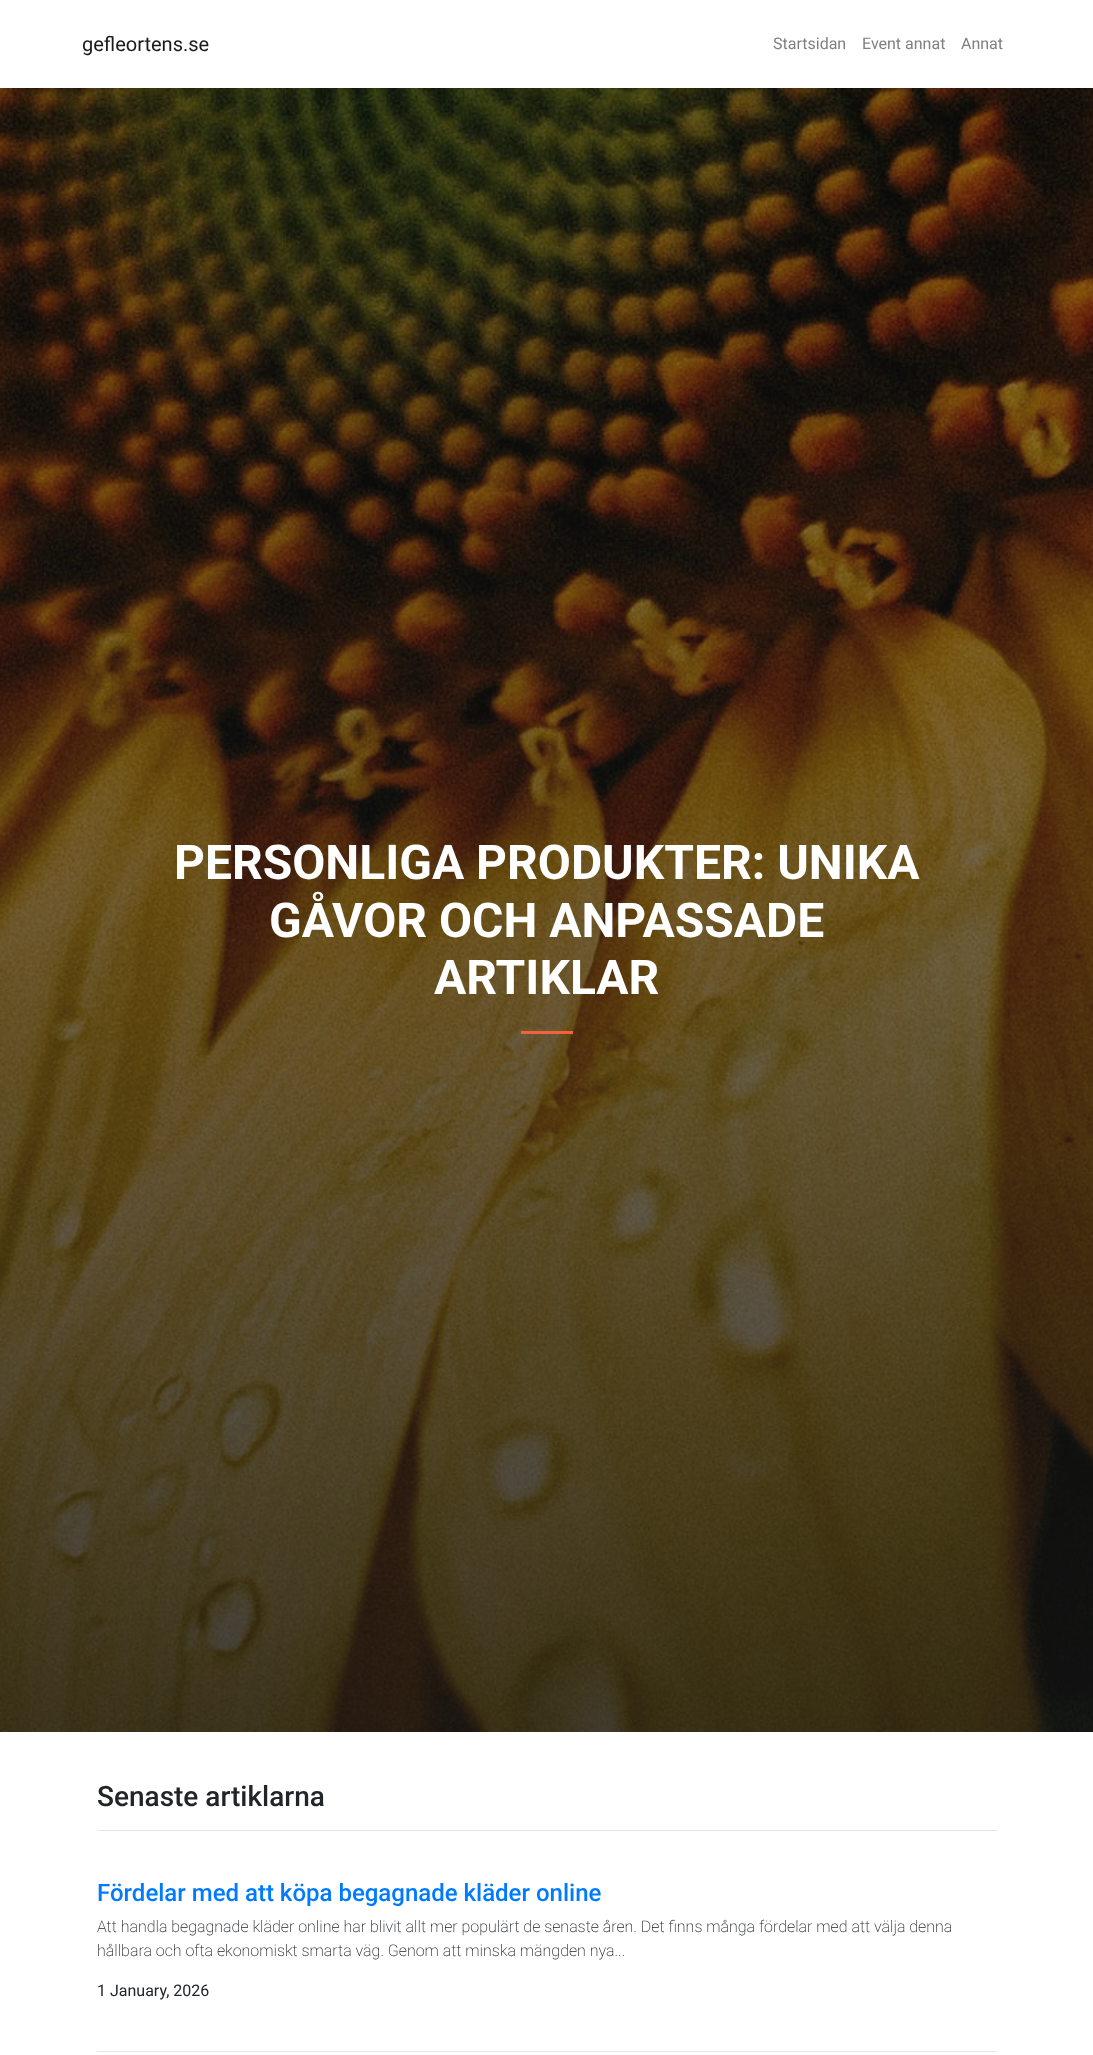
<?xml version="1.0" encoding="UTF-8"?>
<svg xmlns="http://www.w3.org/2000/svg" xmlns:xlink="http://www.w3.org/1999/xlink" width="1093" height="2055">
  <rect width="100%" height="100%" fill="#ffffff" />
  <image x="0" y="88" width="1093" height="1644" xlink:href="image1.png" />
  <rect x="521" y="1031" width="52" height="3" fill="#f4623a" />
  <rect x="97" y="1830" width="900" height="1" fill="#e6e6e6" />
  <rect x="97" y="2051" width="900" height="1" fill="#e6e6e6" />
  <text x="82" y="51" style="font-family: Roboto; font-size: 20px; fill: #1a1a1a">gefleortens.se</text>
  <text x="773" y="49" style="font-family: Roboto; font-size: 16px; fill: #808080">Startsidan</text>
  <text x="862" y="49" style="font-family: Roboto; font-size: 16px; fill: #808080">Event annat</text>
  <text x="961" y="49" style="font-family: Roboto; font-size: 16px; fill: #808080">Annat</text>
  <text x="174" y="879" style="font-family: Roboto; font-size: 48px; font-weight: bold; fill: #ffffff">PERSONLIGA PRODUKTER: UNIKA</text>
  <text x="269" y="937" style="font-family: Roboto; font-size: 48px; font-weight: bold; fill: #ffffff">GÅVOR OCH ANPASSADE</text>
  <text x="434" y="994" style="font-family: Roboto; font-size: 48px; font-weight: bold; fill: #ffffff">ARTIKLAR</text>
  <text x="97" y="1806" style="font-family: Roboto; font-size: 28px; font-weight: 500; fill: #212529">Senaste artiklarna</text>
  <text x="97" y="1901" style="font-family: Roboto; font-size: 24px; font-weight: 500; fill: #007bff">Fördelar med att köpa begagnade kläder online</text>
  <text x="97" y="1932" style="font-family: Roboto; font-size: 16px; font-weight: 200; fill: #212529">Att handla begagnade kläder online har blivit allt mer populärt de senaste åren. Det finns många fördelar med att välja denna</text>
  <text x="97" y="1956" style="font-family: Roboto; font-size: 16px; font-weight: 200; fill: #212529">hållbara och ofta ekonomiskt smarta väg. Genom att minska mängden nya...</text>
  <text x="97" y="1996" style="font-family: Roboto; font-size: 16px; fill: #212529">1 January, 2026</text>
</svg>
